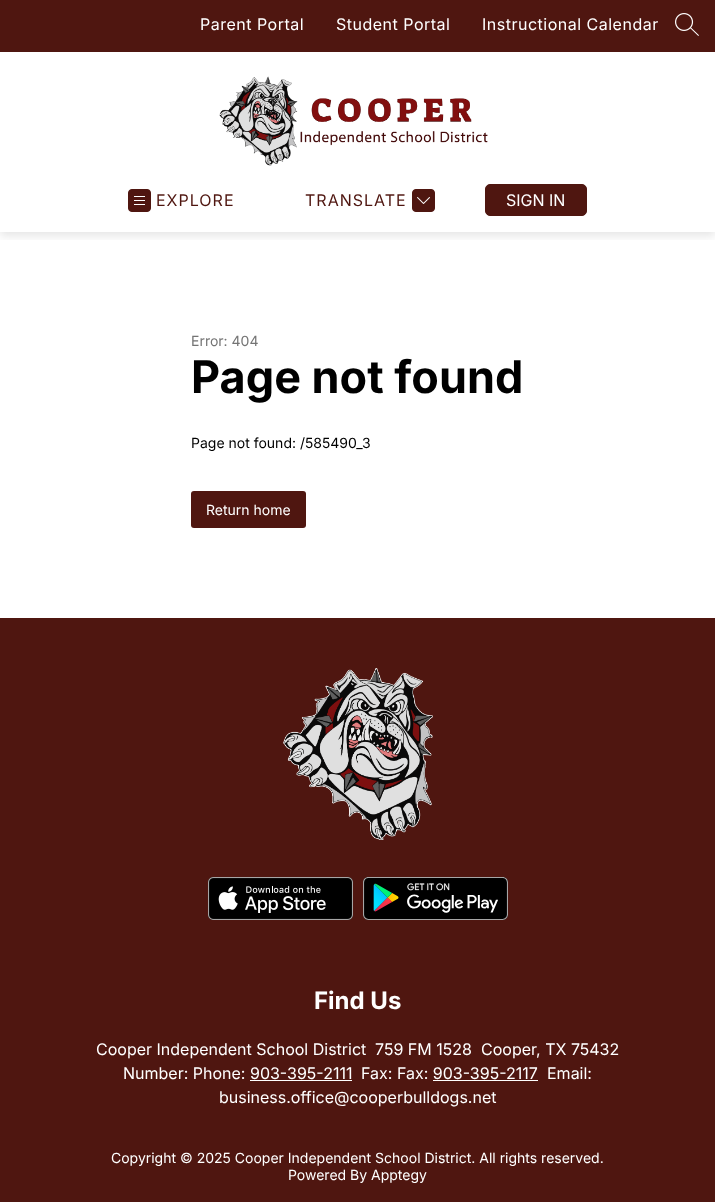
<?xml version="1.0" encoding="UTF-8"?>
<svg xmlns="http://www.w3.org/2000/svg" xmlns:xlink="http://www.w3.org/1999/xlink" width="715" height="1202">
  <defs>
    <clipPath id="clip1"><rect x="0" y="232" width="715" height="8" /></clipPath>
  </defs>
  <rect width="100%" height="100%" fill="#ffffff" />
  <g clip-path="url(#clip1)">
    <rect width="715" height="236" fill="#000000" fill-opacity="0.1" filter="blur(5px)" />
  </g>
  <rect width="715" height="52" fill="#4f1610" />
  <image x="675" y="13" width="24" height="23" xlink:href="image1.png" />
  <image x="219" y="76" width="269" height="90" xlink:href="image2.png" />
  <image x="128" y="189" width="23" height="23" xlink:href="image3.png" />
  <image x="412" y="189" width="23" height="23" xlink:href="image4.png" />
  <rect x="485.5" y="184.5" width="101" height="31" rx="4.5" fill="#4f1610" stroke="#4f1610" />
  <rect x="191" y="491" width="115" height="37" rx="3" fill="#4f1610" />
  <rect y="618" width="715" height="584" fill="#4f1610" />
  <image x="283" y="668" width="150" height="172" xlink:href="image5.png" />
  <image x="208" y="877" width="145" height="43" xlink:href="image6.png" />
  <image x="363" y="877" width="145" height="43" xlink:href="image7.png" />
  <rect x="250" y="1080" width="102" height="1" fill="#ffffff" />
  <rect x="433" y="1080" width="105" height="1" fill="#ffffff" />
  <text x="200" y="30" style="font-family: Inter; font-size: 16px; letter-spacing: 0.5px; fill: #ffffff">Parent Portal</text>
  <text x="336" y="30" style="font-family: Inter; font-size: 16px; letter-spacing: 0.5px; fill: #ffffff">Student Portal</text>
  <text x="482" y="30" style="font-family: Inter; font-size: 16px; letter-spacing: 0.5px; fill: #ffffff">Instructional Calendar</text>
  <text x="156" y="206" style="font-family: Inter; font-size: 16px; letter-spacing: 1px; fill: #4f1610">EXPLORE</text>
  <text x="305" y="206" style="font-family: Inter; font-size: 16px; letter-spacing: 1px; fill: #4f1610">TRANSLATE</text>
  <text x="506" y="206" style="font-family: Inter; font-size: 16px; fill: #ffffff">SIGN IN</text>
  <text x="191" y="346" style="font-family: Inter; font-size: 14px; fill: #747474">Error: 404</text>
  <text x="191" y="393" style="font-family: Inter; font-size: 45px; font-weight: bold; fill: #000000">Page not found</text>
  <text x="191" y="448" style="font-family: Inter; font-size: 14px; fill: #000000">Page not found: /585490_3</text>
  <text x="206" y="515" style="font-family: Inter; font-size: 14px; fill: #ffffff">Return home</text>
  <text x="314" y="1009" style="font-family: Inter; font-size: 24px; font-weight: bold; fill: #ffffff">Find Us</text>
  <text x="96" y="1055" style="font-family: Inter; font-size: 16px; fill: #ffffff">Cooper Independent School District</text>
  <text x="375" y="1055" style="font-family: Inter; font-size: 16px; fill: #ffffff">759 FM 1528</text>
  <text x="481" y="1055" style="font-family: Inter; font-size: 16px; fill: #ffffff">Cooper, TX 75432</text>
  <text x="123" y="1079" style="font-family: Inter; font-size: 16px; fill: #ffffff">Number: Phone: 903-395-2111</text>
  <text x="361" y="1079" style="font-family: Inter; font-size: 16px; fill: #ffffff">Fax: Fax: 903-395-2117</text>
  <text x="547" y="1079" style="font-family: Inter; font-size: 16px; fill: #ffffff">Email:</text>
  <text x="219" y="1103" style="font-family: Inter; font-size: 16px; fill: #ffffff">business.office@cooperbulldogs.net</text>
  <text x="111" y="1163" style="font-family: Inter; font-size: 14px; fill: #ffffff">Copyright © 2025 Cooper Independent School District. All rights reserved.</text>
  <text x="288" y="1180" style="font-family: Inter; font-size: 14px; fill: #ffffff">Powered By Apptegy</text>
</svg>
